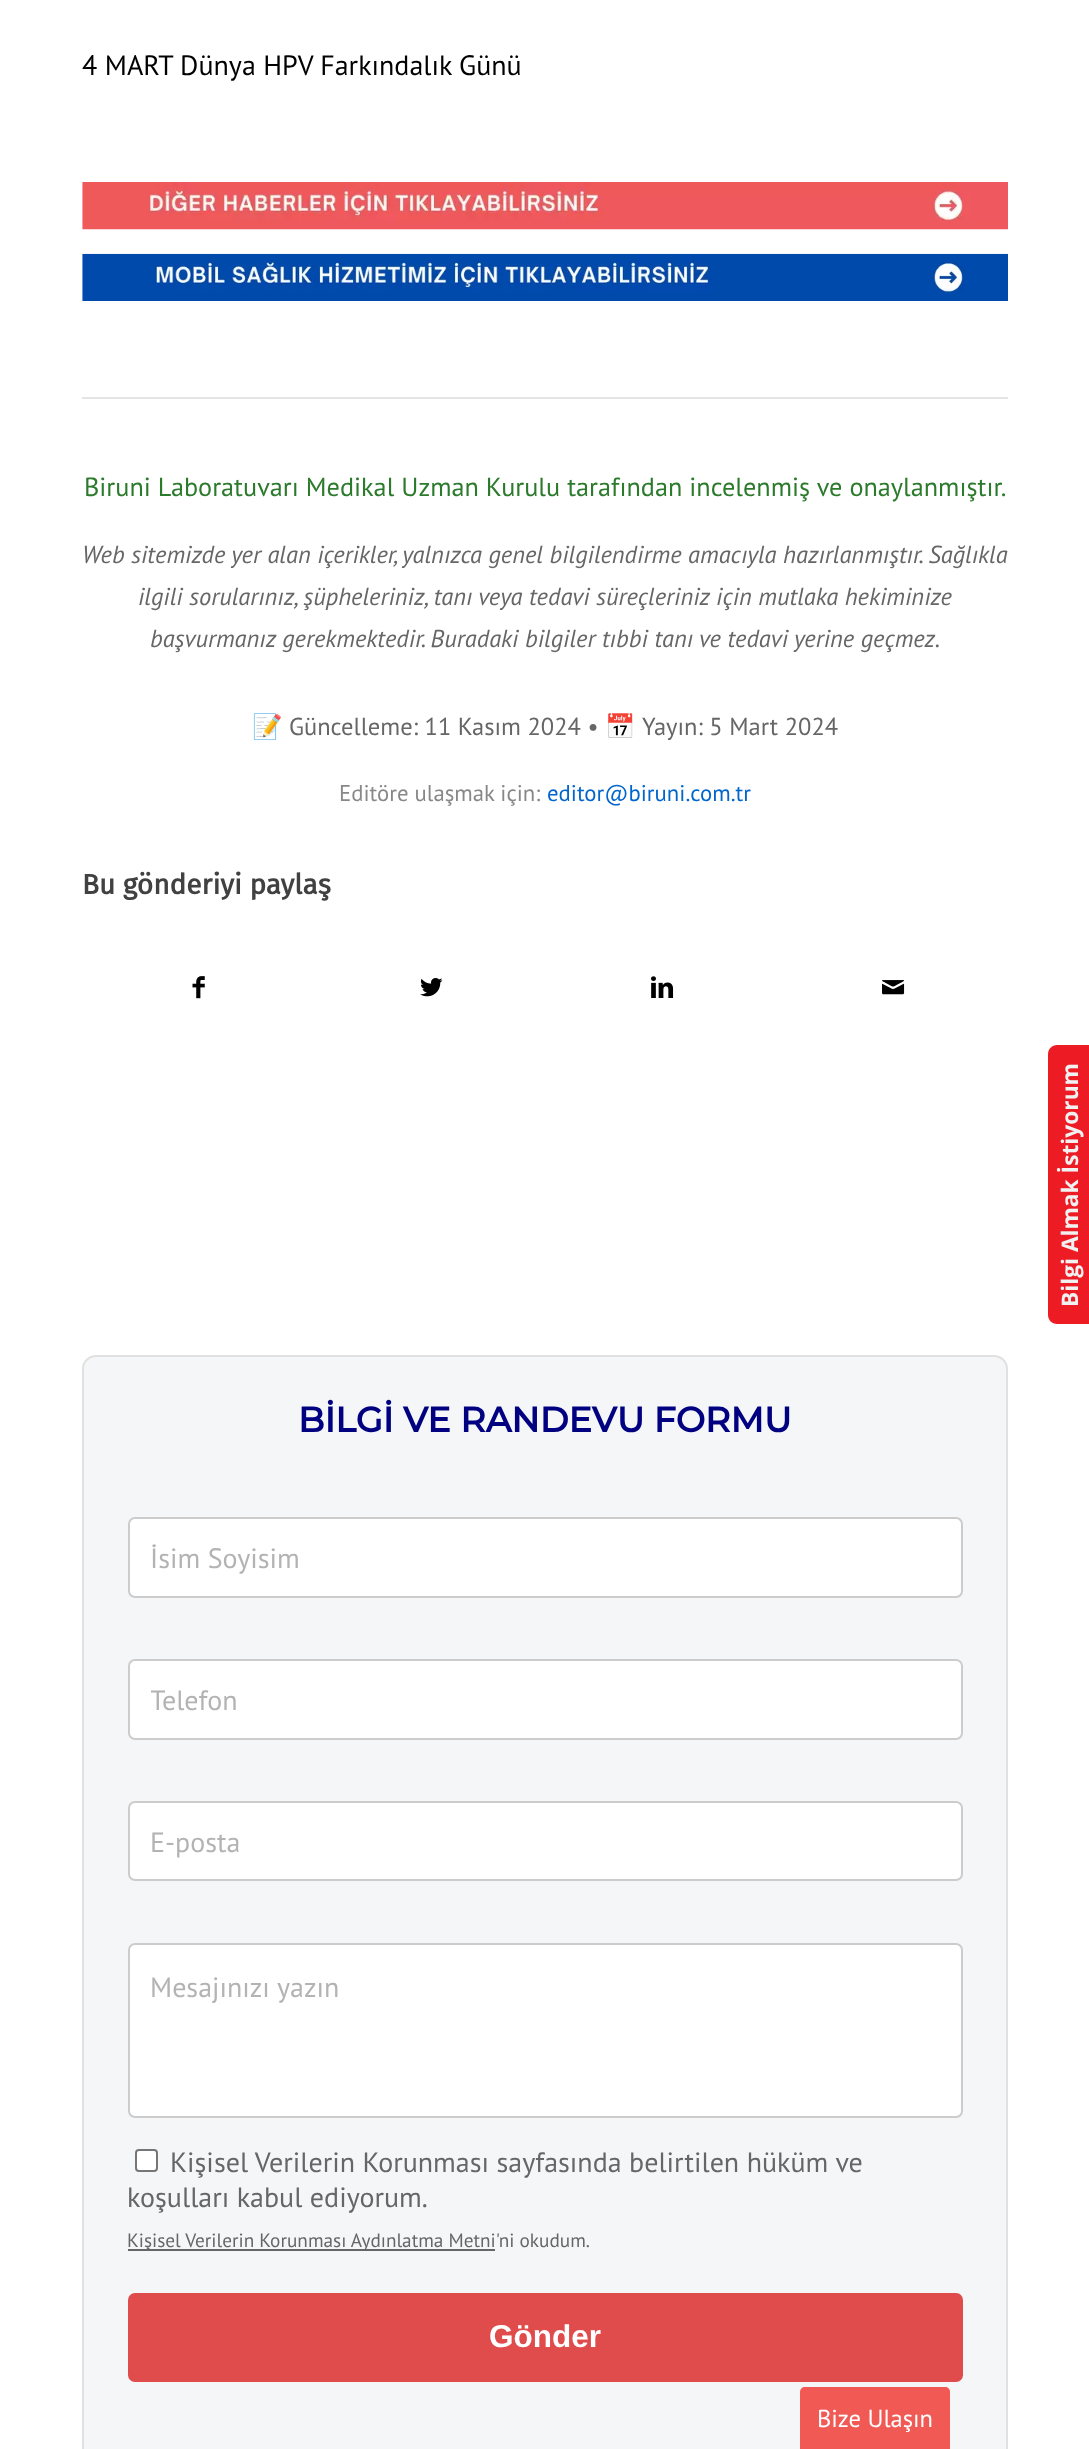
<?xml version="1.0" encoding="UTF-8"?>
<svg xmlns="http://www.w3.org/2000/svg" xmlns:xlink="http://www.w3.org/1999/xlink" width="1089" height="2449">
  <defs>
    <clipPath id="clip1"><rect x="151" y="1682" width="789" height="35" /></clipPath>
  </defs>
  <rect width="100%" height="100%" fill="#ffffff" />
  <image x="82" y="182" width="926" height="48" xlink:href="image1.png" />
  <image x="82" y="253" width="926" height="48" xlink:href="image2.png" />
  <rect x="82" y="397" width="926" height="2" fill="#e5e5e5" />
  <image x="192" y="976" width="13" height="23" xlink:href="image3.png" />
  <image x="420" y="978" width="23" height="19" xlink:href="image4.png" />
  <image x="651" y="976" width="23" height="22" xlink:href="image5.png" />
  <image x="882" y="980" width="23" height="15" xlink:href="image6.png" />
  <rect x="83" y="1356" width="924" height="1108" rx="13" fill="#f4f6f8" stroke="#e1e1e1" stroke-width="2" />
  <rect x="129" y="1518" width="833" height="79" rx="6" fill="#ffffff" stroke="#cccccc" stroke-width="2" />
  <rect x="129" y="1660" width="833" height="79" rx="6" fill="#ffffff" stroke="#cccccc" stroke-width="2" />
  <rect x="129" y="1802" width="833" height="78" rx="6" fill="#ffffff" stroke="#cccccc" stroke-width="2" />
  <rect x="129" y="1944" width="833" height="173" rx="6" fill="#ffffff" stroke="#cccccc" stroke-width="2" />
  <rect x="136" y="2150" width="21" height="21" rx="3" fill="#ffffff" stroke="#767676" stroke-width="2" />
  <rect x="128" y="2249" width="367" height="2" fill="#666666" />
  <rect x="128" y="2293" width="835" height="89" rx="7" fill="#e04b4b" />
  <path d="M 1048 1315 v -261 c 0 -5 4 -9 9 -9 h 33 v 279 h -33 c -5 0 -9 -4 -9 -9 z" fill="#ed1c24" />
  <path d="M 805 2387 h 140 c 3 0 5 2 5 5 v 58 h -150 v -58 c 0 -3 2 -5 5 -5 z" fill="#f15955" />
  <text x="82" y="75" style="font-family: PT Sans; font-size: 28px; fill: #000000">4 MART Dünya HPV Farkındalık Günü</text>
  <text x="84" y="496" style="font-family: PT Sans; font-size: 26.25px; fill: #2c7a2c">Biruni Laboratuvarı Medikal Uzman Kurulu tarafından incelenmiş ve onaylanmıştır.</text>
  <text x="82" y="563" style="font-family: PT Sans; font-size: 24.5px; font-style: italic; fill: #666666">Web sitemizde yer alan içerikler, yalnızca genel bilgilendirme amacıyla hazırlanmıştır. Sağlıkla</text>
  <text x="138" y="605" style="font-family: PT Sans; font-size: 24.5px; font-style: italic; fill: #666666">ilgili sorularınız, şüpheleriniz, tanı veya tedavi süreçleriniz için mutlaka hekiminize</text>
  <text x="150" y="647" style="font-family: PT Sans; font-size: 24.5px; font-style: italic; fill: #666666">başvurmanız gerekmektedir. Buradaki bilgiler tıbbi tanı ve tedavi yerine geçmez.</text>
  <text x="252" y="735" style="font-family: Noto Color Emoji; font-size: 24.5px; fill: #666666">📝</text>
  <text x="289" y="735" style="font-family: PT Sans; font-size: 24.5px; fill: #666666">Güncelleme: 11 Kasım 2024 •</text>
  <text x="605" y="735" style="font-family: Noto Color Emoji; font-size: 24.5px; fill: #666666">📅</text>
  <text x="642" y="735" style="font-family: PT Sans; font-size: 24.5px; fill: #666666">Yayın: 5 Mart 2024</text>
  <text x="339" y="801" style="font-family: PT Sans; font-size: 22.75px; fill: #888888">Editöre ulaşmak için:</text>
  <text x="547" y="801" style="font-family: PT Sans; font-size: 22.75px; fill: #0066cc">editor@biruni.com.tr</text>
  <text x="82" y="894" style="font-family: Fira Sans; font-size: 28px; font-weight: bold; fill: #414141">Bu gönderiyi paylaş</text>
  <text x="298" y="1432" style="font-family: Montserrat; font-size: 35px; font-weight: bold; fill: #000080">BİLGİ VE RANDEVU FORMU</text>
  <text x="150" y="1568" style="font-family: PT Sans; font-size: 28px; fill: #b3b3b3">İsim Soyisim</text>
  <g clip-path="url(#clip1)">
    <text x="150" y="1710" style="font-family: PT Sans; font-size: 28px; fill: #b3b3b3">Telefon</text>
  </g>
  <text x="150" y="1852" style="font-family: PT Sans; font-size: 28px; fill: #b3b3b3">E-posta</text>
  <text x="150" y="1997" style="font-family: PT Sans; font-size: 28px; fill: #b3b3b3">Mesajınızı yazın</text>
  <text x="170" y="2172" style="font-family: PT Sans; font-size: 28px; fill: #666666">Kişisel Verilerin Korunması sayfasında belirtilen hüküm ve</text>
  <text x="127" y="2207" style="font-family: PT Sans; font-size: 28px; fill: #666666">koşulları kabul ediyorum.</text>
  <text x="127" y="2247" style="font-family: PT Sans; font-size: 19.25px; fill: #666666">Kişisel Verilerin Korunması Aydınlatma Metni'ni okudum.</text>
  <text x="489" y="2347" style="font-family: Liberation Sans; font-size: 31.5px; font-weight: bold; fill: #ffffff">Gönder</text>
  <text x="1078" y="1307" transform="rotate(-90 1078 1307)" style="font-family: Open Sans; font-size: 22.75px; font-weight: bold; fill: #f1f1f1">Bilgi Almak İstiyorum</text>
  <text x="817" y="2427" style="font-family: PT Sans; font-size: 24.5px; fill: #ffffff">Bize Ulaşın</text>
</svg>
